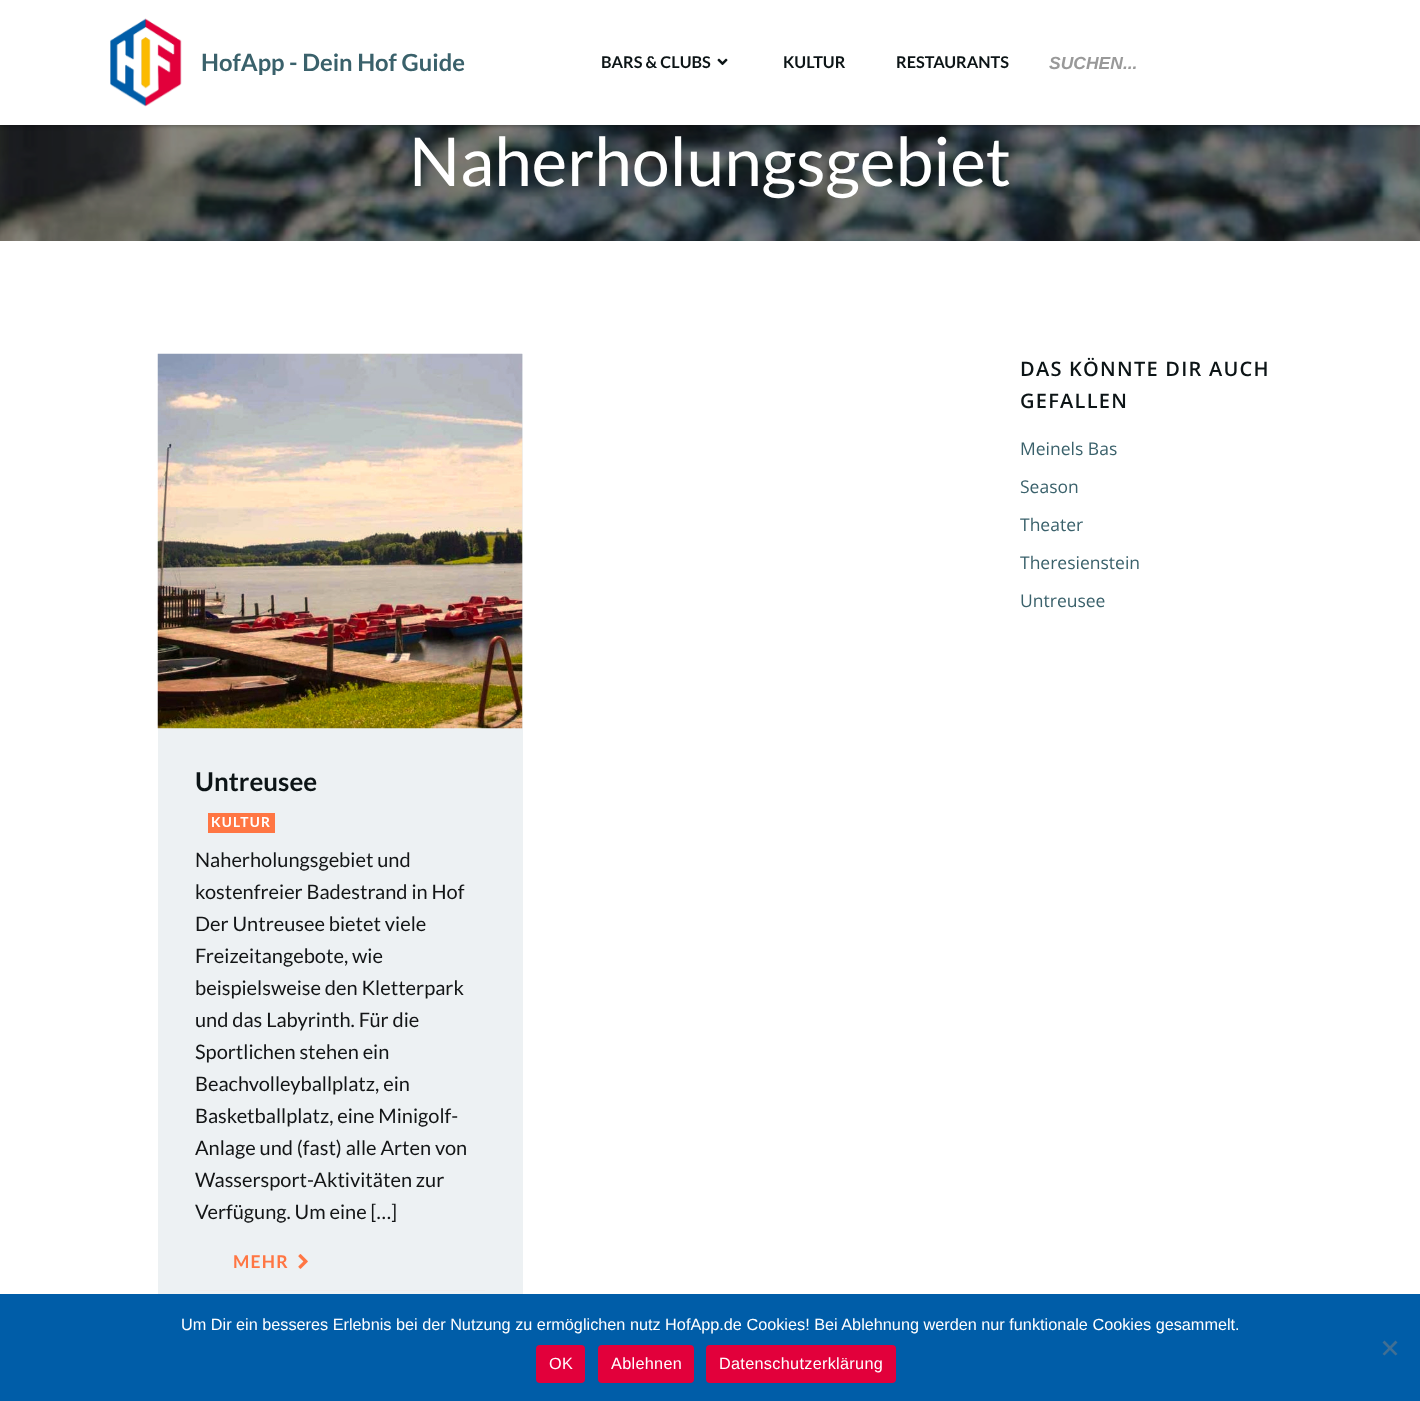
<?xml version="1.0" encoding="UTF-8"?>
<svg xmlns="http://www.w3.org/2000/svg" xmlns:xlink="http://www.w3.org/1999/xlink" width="1420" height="1401">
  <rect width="100%" height="100%" fill="#ffffff" />
  <image x="0" y="125" width="1420" height="116" xlink:href="image3.png" />
  <rect width="1420" height="125" fill="#000000" fill-opacity="0.5" filter="blur(2.5px)" />
  <rect width="1420" height="125" fill="#ffffff" />
  <image x="110" y="18" width="72" height="89" xlink:href="image1.png" />
  <image x="717" y="58" width="11" height="8" xlink:href="image2.png" />
  <rect x="158" y="354" width="365" height="940" fill="#edf1f3" />
  <image x="157" y="353" width="366" height="376" xlink:href="image4.png" />
  <rect x="195" y="1290" width="290" height="1" fill="#eeeeee" />
  <rect x="208" y="813" width="67" height="20" fill="#ff7643" />
  <image x="298" y="1254" width="10" height="15" xlink:href="image5.png" />
  <rect y="1294" width="1420" height="107" fill="#005da8" />
  <path d="M 1395.5 1340.5 l 2 2 l -13 13 l -2 -1.5 z" fill="#406f94" />
  <path d="M 1382.5 1342.5 l 2 -2 l 13 13.5 l -2 1.5 z" fill="#406f94" />
  <rect x="536" y="1345" width="49" height="38" rx="4" fill="#e2003b" />
  <rect x="598" y="1345" width="96" height="38" rx="4" fill="#e2003b" />
  <rect x="706" y="1345" width="190" height="38" rx="4" fill="#e2003b" />
  <text x="201" y="71" style="font-family: Lato; font-size: 23.75px; font-weight: bold; fill: #3a616b">HofApp - Dein Hof Guide</text>
  <text x="601" y="68" style="font-family: Lato; font-size: 16.25px; font-weight: bold; fill: #0c1416">BARS &amp; CLUBS</text>
  <text x="783" y="68" style="font-family: Lato; font-size: 16.25px; font-weight: bold; fill: #0c1416">KULTUR</text>
  <text x="896" y="68" style="font-family: Lato; font-size: 16.25px; font-weight: bold; fill: #0c1416">RESTAURANTS</text>
  <text x="1049" y="69" style="font-family: Liberation Sans; font-size: 17.5px; font-weight: bold; font-style: italic; fill: #999999">SUCHEN...</text>
  <text x="409" y="186" style="font-family: Lato; font-size: 67.5px; fill: #ffffff">Naherholungsgebiet</text>
  <text x="1020" y="376" style="font-family: Open Sans; font-size: 20px; font-weight: 600; letter-spacing: 1.25px; fill: #0c1416">DAS KÖNNTE DIR AUCH</text>
  <text x="1020" y="408" style="font-family: Open Sans; font-size: 20px; font-weight: 600; letter-spacing: 1.25px; fill: #0c1416">GEFALLEN</text>
  <text x="1020" y="455" style="font-family: Open Sans; font-size: 17.5px; fill: #3a616b">Meinels Bas</text>
  <text x="1020" y="493" style="font-family: Open Sans; font-size: 17.5px; fill: #3a616b">Season</text>
  <text x="1020" y="531" style="font-family: Open Sans; font-size: 17.5px; fill: #3a616b">Theater</text>
  <text x="1020" y="569" style="font-family: Open Sans; font-size: 17.5px; fill: #3a616b">Theresienstein</text>
  <text x="1020" y="607" style="font-family: Open Sans; font-size: 17.5px; fill: #3a616b">Untreusee</text>
  <text x="195" y="791" style="font-family: Lato; font-size: 26px; font-weight: bold; fill: #0c1416">Untreusee</text>
  <text x="211" y="827" style="font-family: Lato; font-size: 13.75px; font-weight: bold; letter-spacing: 1.25px; fill: #ffffff">KULTUR</text>
  <text x="195" y="867" style="font-family: Lato; font-size: 20px; fill: #131516">Naherholungsgebiet und</text>
  <text x="195" y="899" style="font-family: Lato; font-size: 20px; fill: #131516">kostenfreier Badestrand in Hof</text>
  <text x="195" y="931" style="font-family: Lato; font-size: 20px; fill: #131516">Der Untreusee bietet viele</text>
  <text x="195" y="963" style="font-family: Lato; font-size: 20px; fill: #131516">Freizeitangebote, wie</text>
  <text x="195" y="995" style="font-family: Lato; font-size: 20px; fill: #131516">beispielsweise den Kletterpark</text>
  <text x="195" y="1027" style="font-family: Lato; font-size: 20px; fill: #131516">und das Labyrinth. Für die</text>
  <text x="195" y="1059" style="font-family: Lato; font-size: 20px; fill: #131516">Sportlichen stehen ein</text>
  <text x="195" y="1091" style="font-family: Lato; font-size: 20px; fill: #131516">Beachvolleyballplatz, ein</text>
  <text x="195" y="1123" style="font-family: Lato; font-size: 20px; fill: #131516">Basketballplatz, eine Minigolf-</text>
  <text x="195" y="1155" style="font-family: Lato; font-size: 20px; fill: #131516">Anlage und (fast) alle Arten von</text>
  <text x="195" y="1187" style="font-family: Lato; font-size: 20px; fill: #131516">Wassersport-Aktivitäten zur</text>
  <text x="195" y="1219" style="font-family: Lato; font-size: 20px; fill: #131516">Verfügung. Um eine […]</text>
  <text x="233" y="1268" style="font-family: Lato; font-size: 17.5px; font-weight: bold; letter-spacing: 1.25px; fill: #ff7643">MEHR</text>
  <text x="181" y="1330" style="font-family: Liberation Sans; font-size: 16.25px; fill: #ffffff">Um Dir ein besseres Erlebnis bei der Nutzung zu ermöglichen nutz HofApp.de Cookies! Bei Ablehnung werden nur funktionale Cookies gesammelt.</text>
  <text x="549" y="1369" style="font-family: Liberation Sans; font-size: 16.25px; letter-spacing: 0.3px; fill: #ffffff">OK</text>
  <text x="611" y="1369" style="font-family: Liberation Sans; font-size: 16.25px; letter-spacing: 0.3px; fill: #ffffff">Ablehnen</text>
  <text x="719" y="1369" style="font-family: Liberation Sans; font-size: 16.25px; letter-spacing: 0.3px; fill: #ffffff">Datenschutzerklärung</text>
</svg>
